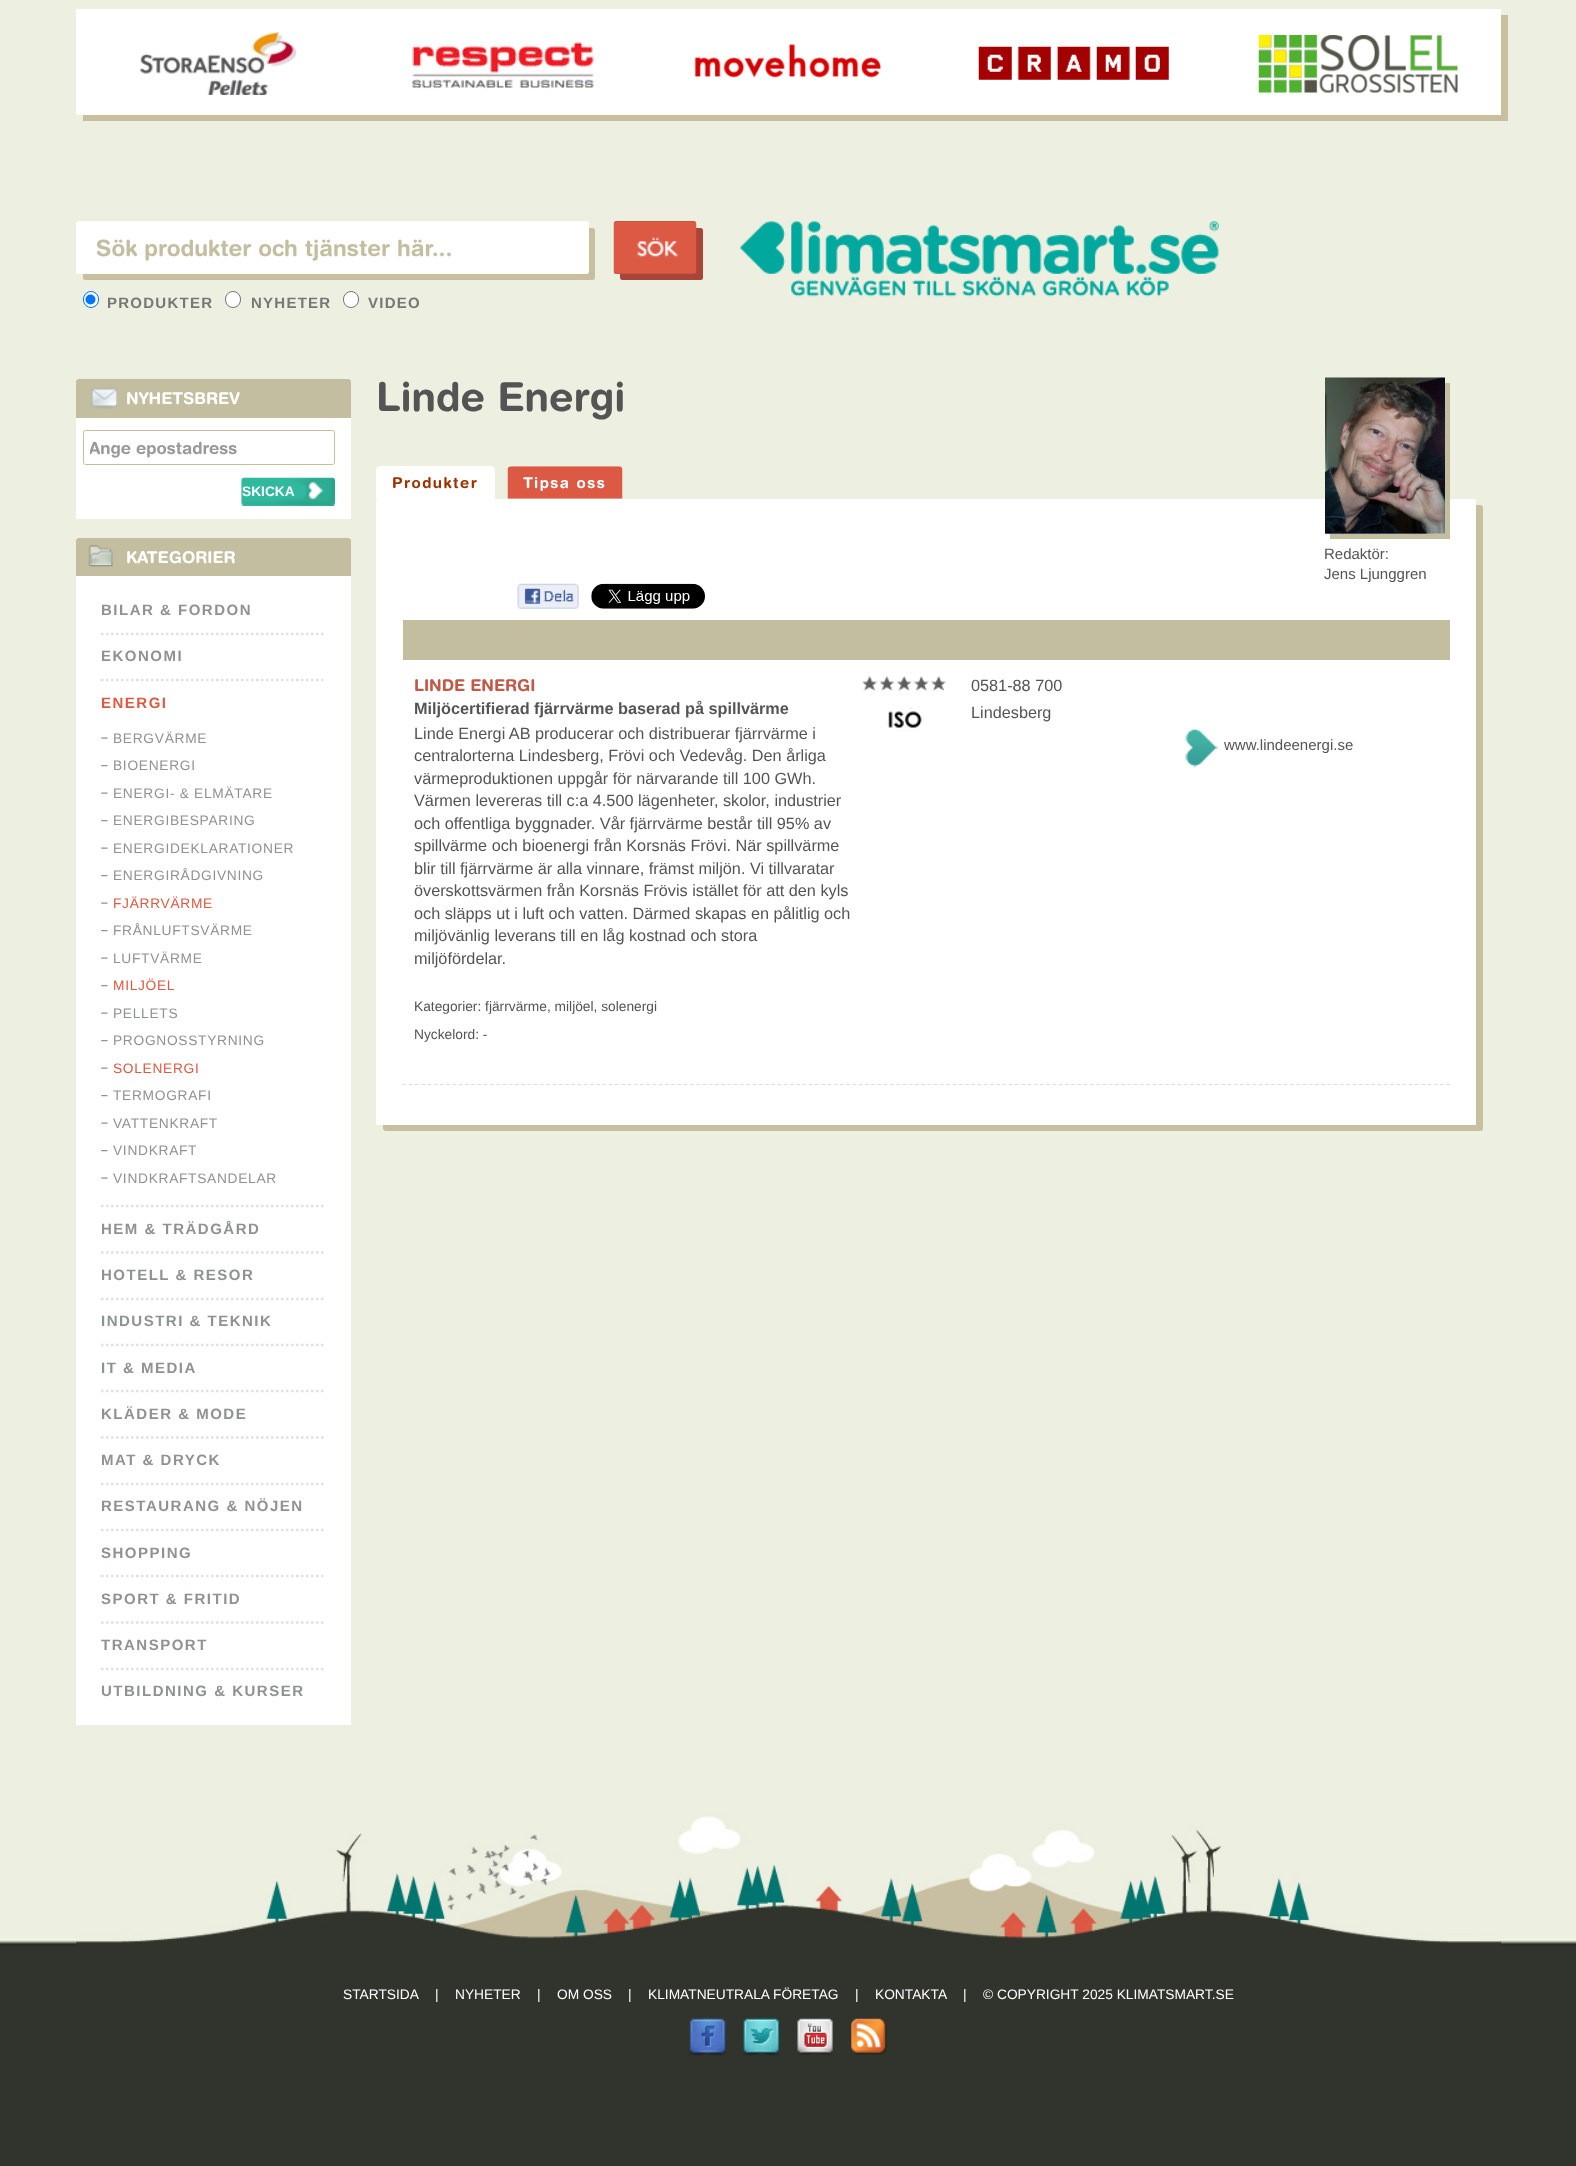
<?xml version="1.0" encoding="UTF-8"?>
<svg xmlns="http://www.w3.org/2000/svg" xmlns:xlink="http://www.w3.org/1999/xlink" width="1576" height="2166">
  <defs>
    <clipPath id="clip1"><rect x="90" y="438" width="238" height="20" /></clipPath>
  </defs>
  <rect width="100%" height="100%" fill="#31342d" />
  <rect width="1576" height="1838" fill="#edefe0" />
  <path d="M 83 115 v 6 h 1425 v -106 h -7 v 100 z" fill="#c8bfa1" />
  <rect x="76" y="9" width="1425" height="106" fill="#ffffff" />
  <image x="140" y="32" width="157" height="63" xlink:href="image1.png" />
  <image x="412" y="42" width="182" height="47" xlink:href="image2.png" />
  <image x="694" y="43" width="187" height="35" xlink:href="image3.png" />
  <image x="978" y="46" width="191" height="34" xlink:href="image4.png" />
  <image x="1258" y="35" width="200" height="58" xlink:href="image5.png" />
  <rect x="83" y="228" width="512" height="52" rx="2.5" fill="#c8bfa1" filter="blur(0.5px)" />
  <rect x="76" y="221" width="513" height="53" rx="2.5" fill="#ffffff" />
  <rect x="620" y="228" width="83" height="52" rx="2.5" fill="#a84539" filter="blur(0.5px)" />
  <rect x="614" y="221" width="82" height="53" rx="2.5" fill="#a84539" />
  <image x="613" y="221" width="84" height="53" xlink:href="image6.png" />
  <rect x="83.5" y="291.5" width="15" height="16" rx="7.5" fill="#ffffff" stroke="#0075ff" />
  <circle cx="90.5" cy="299.5" r="5" fill="#0075ff" />
  <rect x="225.5" y="291.5" width="15" height="16" rx="7.5" fill="#ffffff" stroke="#767676" />
  <rect x="343.5" y="291.5" width="15" height="16" rx="7.5" fill="#ffffff" stroke="#767676" />
  <image x="739" y="221" width="480" height="76" xlink:href="image7.png" />
  <rect x="76" y="379" width="275" height="140" fill="#ffffff" />
  <path d="M 78.5 379 h 270 c 1.5 0 2.5 1 2.5 2.5 v 36.5 h -275 v -36.5 c 0 -1.5 1 -2.5 2.5 -2.5 z" fill="#c4bea1" />
  <image x="91" y="387" width="27" height="22" xlink:href="image8.png" />
  <rect x="83.5" y="430.5" width="251" height="34" rx="2" fill="none" stroke="#c4bea1" />
  <rect x="241" y="478" width="94" height="28" rx="2.5" fill="#efefef" />
  <image x="241" y="477" width="94" height="30" xlink:href="image9.png" />
  <rect x="76" y="538" width="275" height="1187" fill="#ffffff" />
  <path d="M 78.5 538 h 270 c 1.5 0 2.5 1 2.5 2.5 v 35.5 h -275 v -35.5 c 0 -1.5 1 -2.5 2.5 -2.5 z" fill="#c4bea1" />
  <image x="88" y="545" width="25" height="22" xlink:href="image10.png" />
  <path d="M 101 634 h 225" fill="none" stroke="#dee2e3" stroke-width="2.5" stroke-dasharray="2.5 2.5" />
  <path d="M 101 680 h 225" fill="none" stroke="#dee2e3" stroke-width="2.5" stroke-dasharray="2.5 2.5" />
  <image x="101" y="737" width="7" height="2" xlink:href="image11.png" />
  <image x="101" y="765" width="7" height="2" xlink:href="image12.png" />
  <image x="101" y="792" width="7" height="2" xlink:href="image11.png" />
  <image x="101" y="820" width="7" height="2" xlink:href="image12.png" />
  <image x="101" y="847" width="7" height="2" xlink:href="image11.png" />
  <image x="101" y="875" width="7" height="2" xlink:href="image12.png" />
  <image x="101" y="902" width="7" height="2" xlink:href="image11.png" />
  <image x="101" y="930" width="7" height="2" xlink:href="image12.png" />
  <image x="101" y="957" width="7" height="2" xlink:href="image11.png" />
  <image x="101" y="985" width="7" height="2" xlink:href="image12.png" />
  <image x="101" y="1012" width="7" height="2" xlink:href="image11.png" />
  <image x="101" y="1040" width="7" height="2" xlink:href="image12.png" />
  <image x="101" y="1067" width="7" height="2" xlink:href="image11.png" />
  <image x="101" y="1095" width="7" height="2" xlink:href="image12.png" />
  <image x="101" y="1122" width="7" height="2" xlink:href="image11.png" />
  <image x="101" y="1150" width="7" height="2" xlink:href="image12.png" />
  <image x="101" y="1177" width="7" height="2" xlink:href="image11.png" />
  <path d="M 101 1206 h 225" fill="none" stroke="#dee2e3" stroke-width="2.5" stroke-dasharray="2.5 2.5" />
  <path d="M 101 1252.5 h 225" fill="none" stroke="#dee2e3" stroke-width="2.5" stroke-dasharray="2.5 2.5" />
  <path d="M 101 1299 h 225" fill="none" stroke="#dee2e3" stroke-width="2.5" stroke-dasharray="2.5 2.5" />
  <path d="M 101 1345 h 225" fill="none" stroke="#dee2e3" stroke-width="2.5" stroke-dasharray="2.5 2.5" />
  <path d="M 101 1391 h 225" fill="none" stroke="#dee2e3" stroke-width="2.5" stroke-dasharray="2.5 2.5" />
  <path d="M 101 1437.5 h 225" fill="none" stroke="#dee2e3" stroke-width="2.5" stroke-dasharray="2.5 2.5" />
  <path d="M 101 1484 h 225" fill="none" stroke="#dee2e3" stroke-width="2.5" stroke-dasharray="2.5 2.5" />
  <path d="M 101 1530 h 225" fill="none" stroke="#dee2e3" stroke-width="2.5" stroke-dasharray="2.5 2.5" />
  <path d="M 101 1576 h 225" fill="none" stroke="#dee2e3" stroke-width="2.5" stroke-dasharray="2.5 2.5" />
  <path d="M 101 1622.5 h 225" fill="none" stroke="#dee2e3" stroke-width="2.5" stroke-dasharray="2.5 2.5" />
  <path d="M 101 1669 h 225" fill="none" stroke="#dee2e3" stroke-width="2.5" stroke-dasharray="2.5 2.5" />
  <path d="M 380 466 h 111 c 2 0 4 2 4 4 v 29 h -119 v -29 c 0 -2 2 -4 4 -4 z" fill="#ffffff" />
  <image x="507" y="466" width="116" height="33" xlink:href="image13.png" />
  <path d="M 383 1125 v 3 c 0 2 1 3 3 3 h 1094 c 2 0 3 -1 3 -3 v -620 c 0 -2 -1 -3 -3 -3 h -4 v 617 c 0 2 -1 3 -2 3 z" fill="#c8bfa1" />
  <rect x="376" y="499" width="1100" height="626" rx="2.5" fill="#ffffff" />
  <rect x="376" y="1123" width="1100" height="2" fill="#ffffff" />
  <path d="M 1330 534 v 5 h 120 v -156 h -5 v 151 z" fill="#c4bea1" />
  <image x="1325" y="377" width="120" height="157" xlink:href="image14.png" />
  <image x="517" y="583" width="62" height="26" xlink:href="image15.png" />
  <image x="591" y="583" width="114" height="26" xlink:href="image16.png" />
  <rect x="403" y="620" width="1047" height="40" fill="#c4bea1" />
  <image x="862" y="676" width="85" height="15" xlink:href="image17.png" />
  <image x="886" y="707" width="38" height="24" xlink:href="image18.png" />
  <image x="1185" y="728" width="33" height="40" xlink:href="image19.png" />
  <path d="M 402.5 1084.5 h 1047.5" fill="none" stroke="#dddddd" stroke-width="1.2" stroke-dasharray="3.75 2.5" />
  <image x="0" y="1838" width="1576" height="108" xlink:href="image20.png" />
  <image x="76" y="1814" width="1426" height="132" xlink:href="image21.png" />
  <image x="689" y="2018" width="37" height="38" xlink:href="image22.png" />
  <image x="743" y="2018" width="36" height="38" xlink:href="image23.png" />
  <image x="797" y="2018" width="36" height="37" xlink:href="image24.png" />
  <image x="851" y="2018" width="36" height="37" xlink:href="image25.png" />
  <text x="96" y="256" style="font-family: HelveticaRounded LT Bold; font-size: 22.5px; font-weight: bold; fill: #c4bea1">Sök produkter och tjänster här...</text>
  <text x="107" y="308" style="font-family: Liberation Sans; font-size: 15px; font-weight: bold; letter-spacing: 1.25px; fill: #777777">PRODUKTER</text>
  <text x="251" y="308" style="font-family: Liberation Sans; font-size: 15px; font-weight: bold; letter-spacing: 1.25px; fill: #777777">NYHETER</text>
  <text x="368" y="308" style="font-family: Liberation Sans; font-size: 15px; font-weight: bold; letter-spacing: 1.25px; fill: #777777">VIDEO</text>
  <text x="126" y="404" style="font-family: HelveticaRounded LT Bold; font-size: 16.25px; font-weight: bold; fill: #ffffff">NYHETSBREV</text>
  <g clip-path="url(#clip1)">
    <text x="89" y="454" style="font-family: HelveticaRounded LT Bold; font-size: 16.75px; font-weight: bold; fill: #999999">Ange epostadress</text>
  </g>
  <text x="242" y="496" style="font-family: Liberation Sans; font-size: 13.75px; font-weight: bold; fill: #ffffff">SKICKA</text>
  <text x="126" y="563" style="font-family: HelveticaRounded LT Bold; font-size: 16.25px; font-weight: bold; fill: #ffffff">KATEGORIER</text>
  <text x="101" y="615" style="font-family: Liberation Sans; font-size: 15px; font-weight: bold; letter-spacing: 1.5px; fill: #8f9292">BILAR &amp; FORDON</text>
  <text x="101" y="661" style="font-family: Liberation Sans; font-size: 15px; font-weight: bold; letter-spacing: 1.5px; fill: #8f9292">EKONOMI</text>
  <text x="101" y="708" style="font-family: Liberation Sans; font-size: 15px; font-weight: bold; letter-spacing: 1.5px; fill: #dc5943">ENERGI</text>
  <text x="113" y="743" style="font-family: Liberation Sans; font-size: 13.75px; letter-spacing: 0.7px; fill: #8f9292">BERGVÄRME</text>
  <text x="113" y="770" style="font-family: Liberation Sans; font-size: 13.75px; letter-spacing: 0.7px; fill: #8f9292">BIOENERGI</text>
  <text x="113" y="798" style="font-family: Liberation Sans; font-size: 13.75px; letter-spacing: 0.7px; fill: #8f9292">ENERGI- &amp; ELMÄTARE</text>
  <text x="113" y="825" style="font-family: Liberation Sans; font-size: 13.75px; letter-spacing: 0.7px; fill: #8f9292">ENERGIBESPARING</text>
  <text x="113" y="853" style="font-family: Liberation Sans; font-size: 13.75px; letter-spacing: 0.7px; fill: #8f9292">ENERGIDEKLARATIONER</text>
  <text x="113" y="880" style="font-family: Liberation Sans; font-size: 13.75px; letter-spacing: 0.7px; fill: #8f9292">ENERGIRÅDGIVNING</text>
  <text x="113" y="908" style="font-family: Liberation Sans; font-size: 13.75px; letter-spacing: 0.7px; fill: #dc5943">FJÄRRVÄRME</text>
  <text x="113" y="935" style="font-family: Liberation Sans; font-size: 13.75px; letter-spacing: 0.7px; fill: #8f9292">FRÅNLUFTSVÄRME</text>
  <text x="113" y="963" style="font-family: Liberation Sans; font-size: 13.75px; letter-spacing: 0.7px; fill: #8f9292">LUFTVÄRME</text>
  <text x="113" y="990" style="font-family: Liberation Sans; font-size: 13.75px; letter-spacing: 0.7px; fill: #dc5943">MILJÖEL</text>
  <text x="113" y="1018" style="font-family: Liberation Sans; font-size: 13.75px; letter-spacing: 0.7px; fill: #8f9292">PELLETS</text>
  <text x="113" y="1045" style="font-family: Liberation Sans; font-size: 13.75px; letter-spacing: 0.7px; fill: #8f9292">PROGNOSSTYRNING</text>
  <text x="113" y="1073" style="font-family: Liberation Sans; font-size: 13.75px; letter-spacing: 0.7px; fill: #dc5943">SOLENERGI</text>
  <text x="113" y="1100" style="font-family: Liberation Sans; font-size: 13.75px; letter-spacing: 0.7px; fill: #8f9292">TERMOGRAFI</text>
  <text x="113" y="1128" style="font-family: Liberation Sans; font-size: 13.75px; letter-spacing: 0.7px; fill: #8f9292">VATTENKRAFT</text>
  <text x="113" y="1155" style="font-family: Liberation Sans; font-size: 13.75px; letter-spacing: 0.7px; fill: #8f9292">VINDKRAFT</text>
  <text x="113" y="1183" style="font-family: Liberation Sans; font-size: 13.75px; letter-spacing: 0.7px; fill: #8f9292">VINDKRAFTSANDELAR</text>
  <text x="101" y="1234" style="font-family: Liberation Sans; font-size: 15px; font-weight: bold; letter-spacing: 1.5px; fill: #8f9292">HEM &amp; TRÄDGÅRD</text>
  <text x="101" y="1280" style="font-family: Liberation Sans; font-size: 15px; font-weight: bold; letter-spacing: 1.5px; fill: #8f9292">HOTELL &amp; RESOR</text>
  <text x="101" y="1326" style="font-family: Liberation Sans; font-size: 15px; font-weight: bold; letter-spacing: 1.5px; fill: #8f9292">INDUSTRI &amp; TEKNIK</text>
  <text x="101" y="1373" style="font-family: Liberation Sans; font-size: 15px; font-weight: bold; letter-spacing: 1.5px; fill: #8f9292">IT &amp; MEDIA</text>
  <text x="101" y="1419" style="font-family: Liberation Sans; font-size: 15px; font-weight: bold; letter-spacing: 1.5px; fill: #8f9292">KLÄDER &amp; MODE</text>
  <text x="101" y="1465" style="font-family: Liberation Sans; font-size: 15px; font-weight: bold; letter-spacing: 1.5px; fill: #8f9292">MAT &amp; DRYCK</text>
  <text x="101" y="1511" style="font-family: Liberation Sans; font-size: 15px; font-weight: bold; letter-spacing: 1.5px; fill: #8f9292">RESTAURANG &amp; NÖJEN</text>
  <text x="101" y="1558" style="font-family: Liberation Sans; font-size: 15px; font-weight: bold; letter-spacing: 1.5px; fill: #8f9292">SHOPPING</text>
  <text x="101" y="1604" style="font-family: Liberation Sans; font-size: 15px; font-weight: bold; letter-spacing: 1.5px; fill: #8f9292">SPORT &amp; FRITID</text>
  <text x="101" y="1650" style="font-family: Liberation Sans; font-size: 15px; font-weight: bold; letter-spacing: 1.5px; fill: #8f9292">TRANSPORT</text>
  <text x="101" y="1696" style="font-family: Liberation Sans; font-size: 15px; font-weight: bold; letter-spacing: 1.5px; fill: #8f9292">UTBILDNING &amp; KURSER</text>
  <text x="376" y="411" style="font-family: HelveticaRounded LT Bold; font-size: 40px; font-weight: bold; fill: #545454">Linde Energi</text>
  <text x="392" y="488" style="font-family: HelveticaRounded LT Bold; font-size: 15px; font-weight: bold; letter-spacing: 1.5px; fill: #993300">Produkter</text>
  <text x="523" y="488" style="font-family: HelveticaRounded LT Bold; font-size: 15px; font-weight: bold; letter-spacing: 1.5px; fill: #ffffff">Tipsa oss</text>
  <text x="1324" y="559" style="font-family: Liberation Sans; font-size: 15px; fill: #545454">Redaktör:</text>
  <text x="1324" y="579" style="font-family: Liberation Sans; font-size: 15px; fill: #545454">Jens Ljunggren</text>
  <text x="414" y="691" style="font-family: HelveticaRounded LT Bold; font-size: 16.25px; font-weight: bold; fill: #c15946">LINDE ENERGI</text>
  <text x="414" y="714" style="font-family: Liberation Sans; font-size: 16.25px; font-weight: bold; fill: #545454">Miljöcertifierad fjärrvärme baserad på spillvärme</text>
  <text x="414" y="739" style="font-family: Liberation Sans; font-size: 16.25px; fill: #545454">Linde Energi AB producerar och distribuerar fjärrvärme i</text>
  <text x="414" y="761" style="font-family: Liberation Sans; font-size: 16.25px; fill: #545454">centralorterna Lindesberg, Frövi och Vedevåg. Den årliga</text>
  <text x="414" y="784" style="font-family: Liberation Sans; font-size: 16.25px; fill: #545454">värmeproduktionen uppgår för närvarande till 100 GWh.</text>
  <text x="414" y="806" style="font-family: Liberation Sans; font-size: 16.25px; fill: #545454">Värmen levereras till c:a 4.500 lägenheter, skolor, industrier</text>
  <text x="414" y="829" style="font-family: Liberation Sans; font-size: 16.25px; fill: #545454">och offentliga byggnader. Vår fjärrvärme består till 95% av</text>
  <text x="414" y="851" style="font-family: Liberation Sans; font-size: 16.25px; fill: #545454">spillvärme och bioenergi från Korsnäs Frövi. När spillvärme</text>
  <text x="414" y="874" style="font-family: Liberation Sans; font-size: 16.25px; fill: #545454">blir till fjärrvärme är alla vinnare, främst miljön. Vi tillvaratar</text>
  <text x="414" y="896" style="font-family: Liberation Sans; font-size: 16.25px; fill: #545454">överskottsvärmen från Korsnäs Frövis istället för att den kyls</text>
  <text x="414" y="919" style="font-family: Liberation Sans; font-size: 16.25px; fill: #545454">och släpps ut i luft och vatten. Därmed skapas en pålitlig och</text>
  <text x="414" y="941" style="font-family: Liberation Sans; font-size: 16.25px; fill: #545454">miljövänlig leverans till en låg kostnad och stora</text>
  <text x="414" y="964" style="font-family: Liberation Sans; font-size: 16.25px; fill: #545454">miljöfördelar.</text>
  <text x="971" y="691" style="font-family: Liberation Sans; font-size: 16.25px; fill: #545454">0581-88 700</text>
  <text x="971" y="718" style="font-family: Liberation Sans; font-size: 16.25px; fill: #545454">Lindesberg</text>
  <text x="1224" y="750" style="font-family: Liberation Sans; font-size: 15px; fill: #545454">www.lindeenergi.se</text>
  <text x="414" y="1011" style="font-family: Liberation Sans; font-size: 13.75px; fill: #545454">Kategorier: fjärrvärme, miljöel, solenergi</text>
  <text x="414" y="1039" style="font-family: Liberation Sans; font-size: 13.75px; fill: #545454">Nyckelord: -</text>
  <text x="343" y="1999" style="font-family: Liberation Sans; font-size: 13.75px; fill: #ffffff">STARTSIDA</text>
  <text x="435" y="1999" style="font-family: Liberation Sans; font-size: 13.75px; fill: #ffffff">|</text>
  <text x="455" y="1999" style="font-family: Liberation Sans; font-size: 13.75px; fill: #ffffff">NYHETER</text>
  <text x="537" y="1999" style="font-family: Liberation Sans; font-size: 13.75px; fill: #ffffff">|</text>
  <text x="557" y="1999" style="font-family: Liberation Sans; font-size: 13.75px; fill: #ffffff">OM OSS</text>
  <text x="628" y="1999" style="font-family: Liberation Sans; font-size: 13.75px; fill: #ffffff">|</text>
  <text x="648" y="1999" style="font-family: Liberation Sans; font-size: 13.75px; fill: #ffffff">KLIMATNEUTRALA FÖRETAG</text>
  <text x="855" y="1999" style="font-family: Liberation Sans; font-size: 13.75px; fill: #ffffff">|</text>
  <text x="875" y="1999" style="font-family: Liberation Sans; font-size: 13.75px; fill: #ffffff">KONTAKTA</text>
  <text x="963" y="1999" style="font-family: Liberation Sans; font-size: 13.75px; fill: #ffffff">|</text>
  <text x="983" y="1999" style="font-family: Liberation Sans; font-size: 13.75px; fill: #ffffff">© COPYRIGHT 2025 KLIMATSMART.SE</text>
</svg>
